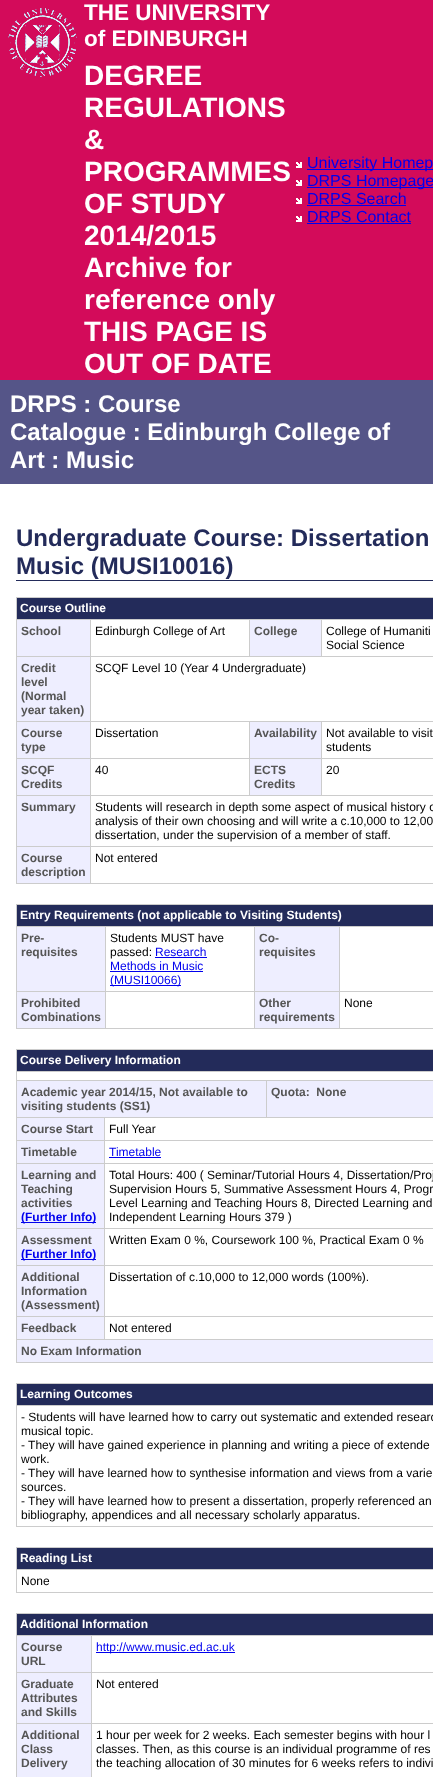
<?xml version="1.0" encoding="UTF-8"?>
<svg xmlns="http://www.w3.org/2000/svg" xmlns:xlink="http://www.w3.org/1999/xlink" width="433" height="1777">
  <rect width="100%" height="100%" fill="#ffffff" />
  <rect width="433" height="380" fill="#d30b5a" />
  <image x="8" y="8" width="69" height="69" xlink:href="image1.png" />
  <image x="296" y="162" width="6" height="6" xlink:href="image2.png" />
  <rect x="307" y="169" width="126" height="1" fill="#0000ee" />
  <image x="296" y="180" width="6" height="6" xlink:href="image2.png" />
  <rect x="307" y="187" width="126" height="1" fill="#0000ee" />
  <image x="296" y="198" width="6" height="6" xlink:href="image2.png" />
  <rect x="307" y="205" width="99" height="1" fill="#0000ee" />
  <image x="296" y="216" width="6" height="6" xlink:href="image2.png" />
  <rect x="307" y="223" width="104" height="1" fill="#0000ee" />
  <rect y="380" width="433" height="104" fill="#555588" />
  <rect x="16" y="580" width="417" height="1" fill="#232b5a" />
  <rect x="16" y="597" width="417" height="1" fill="#cccccc" />
  <rect x="16" y="883" width="417" height="1" fill="#cccccc" />
  <rect x="16" y="597" width="1" height="287" fill="#cccccc" />
  <rect x="17" y="598" width="416" height="21" fill="#232b5a" />
  <rect x="17" y="620" width="73" height="36" fill="#eeeeff" />
  <rect x="321" y="619" width="112" height="1" fill="#cccccc" />
  <rect x="90" y="656" width="343" height="1" fill="#cccccc" />
  <rect x="321" y="619" width="1" height="38" fill="#cccccc" />
  <rect x="249" y="619" width="73" height="1" fill="#cccccc" />
  <rect x="249" y="619" width="1" height="38" fill="#cccccc" />
  <rect x="90" y="619" width="160" height="1" fill="#cccccc" />
  <rect x="321" y="721" width="112" height="1" fill="#cccccc" />
  <rect x="321" y="758" width="112" height="1" fill="#cccccc" />
  <rect x="90" y="795" width="343" height="1" fill="#cccccc" />
  <rect x="321" y="758" width="1" height="38" fill="#cccccc" />
  <rect x="249" y="758" width="73" height="1" fill="#cccccc" />
  <rect x="321" y="721" width="1" height="38" fill="#cccccc" />
  <rect x="249" y="721" width="73" height="1" fill="#cccccc" />
  <rect x="249" y="758" width="1" height="38" fill="#cccccc" />
  <rect x="90" y="758" width="160" height="1" fill="#cccccc" />
  <rect x="249" y="721" width="1" height="38" fill="#cccccc" />
  <rect x="90" y="721" width="160" height="1" fill="#cccccc" />
  <rect x="90" y="846" width="343" height="1" fill="#cccccc" />
  <rect x="90" y="846" width="1" height="38" fill="#cccccc" />
  <rect x="16" y="846" width="75" height="1" fill="#cccccc" />
  <rect x="90" y="795" width="1" height="52" fill="#cccccc" />
  <rect x="16" y="795" width="75" height="1" fill="#cccccc" />
  <rect x="90" y="758" width="1" height="38" fill="#cccccc" />
  <rect x="16" y="758" width="75" height="1" fill="#cccccc" />
  <rect x="90" y="721" width="1" height="38" fill="#cccccc" />
  <rect x="16" y="721" width="75" height="1" fill="#cccccc" />
  <rect x="90" y="656" width="1" height="66" fill="#cccccc" />
  <rect x="16" y="656" width="75" height="1" fill="#cccccc" />
  <rect x="90" y="619" width="1" height="38" fill="#cccccc" />
  <rect x="16" y="619" width="75" height="1" fill="#cccccc" />
  <rect x="250" y="620" width="71" height="36" fill="#eeeeff" />
  <rect x="17" y="657" width="73" height="64" fill="#eeeeff" />
  <rect x="17" y="722" width="73" height="36" fill="#eeeeff" />
  <rect x="250" y="722" width="71" height="36" fill="#eeeeff" />
  <rect x="17" y="759" width="73" height="36" fill="#eeeeff" />
  <rect x="250" y="759" width="71" height="36" fill="#eeeeff" />
  <rect x="17" y="796" width="73" height="50" fill="#eeeeff" />
  <rect x="17" y="847" width="73" height="36" fill="#eeeeff" />
  <rect x="16" y="904" width="417" height="1" fill="#cccccc" />
  <rect x="16" y="1028" width="417" height="1" fill="#cccccc" />
  <rect x="16" y="904" width="1" height="125" fill="#cccccc" />
  <rect x="17" y="905" width="416" height="21" fill="#232b5a" />
  <rect x="17" y="927" width="88" height="64" fill="#eeeeff" />
  <rect x="339" y="926" width="94" height="1" fill="#cccccc" />
  <rect x="339" y="991" width="94" height="1" fill="#cccccc" />
  <rect x="339" y="991" width="1" height="38" fill="#cccccc" />
  <rect x="254" y="991" width="86" height="1" fill="#cccccc" />
  <rect x="339" y="926" width="1" height="66" fill="#cccccc" />
  <rect x="254" y="926" width="86" height="1" fill="#cccccc" />
  <rect x="254" y="991" width="1" height="38" fill="#cccccc" />
  <rect x="105" y="991" width="150" height="1" fill="#cccccc" />
  <rect x="254" y="926" width="1" height="66" fill="#cccccc" />
  <rect x="105" y="926" width="150" height="1" fill="#cccccc" />
  <rect x="105" y="991" width="1" height="38" fill="#cccccc" />
  <rect x="16" y="991" width="90" height="1" fill="#cccccc" />
  <rect x="105" y="926" width="1" height="66" fill="#cccccc" />
  <rect x="16" y="926" width="90" height="1" fill="#cccccc" />
  <rect x="155" y="957" width="52" height="1" fill="#0000ee" />
  <rect x="110" y="971" width="93" height="1" fill="#0000ee" />
  <rect x="110" y="985" width="71" height="1" fill="#0000ee" />
  <rect x="255" y="927" width="84" height="64" fill="#eeeeff" />
  <rect x="17" y="992" width="88" height="36" fill="#eeeeff" />
  <rect x="255" y="992" width="84" height="36" fill="#eeeeff" />
  <rect x="16" y="1049" width="417" height="1" fill="#cccccc" />
  <rect x="16" y="1362" width="417" height="1" fill="#cccccc" />
  <rect x="16" y="1049" width="1" height="314" fill="#cccccc" />
  <rect x="17" y="1050" width="416" height="21" fill="#232b5a" />
  <rect x="16" y="1071" width="417" height="1" fill="#cccccc" />
  <rect x="17" y="1081" width="249" height="36" fill="#eeeeff" />
  <rect x="266" y="1080" width="167" height="1" fill="#cccccc" />
  <rect x="104" y="1117" width="329" height="1" fill="#cccccc" />
  <rect x="266" y="1080" width="1" height="38" fill="#cccccc" />
  <rect x="16" y="1080" width="251" height="1" fill="#cccccc" />
  <rect x="267" y="1081" width="166" height="36" fill="#eeeeff" />
  <rect x="17" y="1118" width="87" height="22" fill="#eeeeff" />
  <rect x="104" y="1140" width="329" height="1" fill="#cccccc" />
  <rect x="104" y="1163" width="329" height="1" fill="#cccccc" />
  <rect x="104" y="1228" width="329" height="1" fill="#cccccc" />
  <rect x="104" y="1265" width="329" height="1" fill="#cccccc" />
  <rect x="104" y="1316" width="329" height="1" fill="#cccccc" />
  <rect x="16" y="1339" width="417" height="1" fill="#cccccc" />
  <rect x="104" y="1316" width="1" height="24" fill="#cccccc" />
  <rect x="16" y="1316" width="89" height="1" fill="#cccccc" />
  <rect x="104" y="1265" width="1" height="52" fill="#cccccc" />
  <rect x="16" y="1265" width="89" height="1" fill="#cccccc" />
  <rect x="104" y="1228" width="1" height="38" fill="#cccccc" />
  <rect x="16" y="1228" width="89" height="1" fill="#cccccc" />
  <rect x="104" y="1163" width="1" height="66" fill="#cccccc" />
  <rect x="16" y="1163" width="89" height="1" fill="#cccccc" />
  <rect x="104" y="1140" width="1" height="24" fill="#cccccc" />
  <rect x="16" y="1140" width="89" height="1" fill="#cccccc" />
  <rect x="104" y="1117" width="1" height="24" fill="#cccccc" />
  <rect x="16" y="1117" width="89" height="1" fill="#cccccc" />
  <rect x="17" y="1141" width="87" height="22" fill="#eeeeff" />
  <rect x="109" y="1157" width="52" height="1" fill="#0000ee" />
  <rect x="17" y="1164" width="87" height="64" fill="#eeeeff" />
  <rect x="21" y="1222" width="75" height="1" fill="#0000ee" />
  <rect x="17" y="1229" width="87" height="36" fill="#eeeeff" />
  <rect x="21" y="1259" width="75" height="1" fill="#0000ee" />
  <rect x="17" y="1266" width="87" height="50" fill="#eeeeff" />
  <rect x="17" y="1317" width="87" height="22" fill="#eeeeff" />
  <rect x="17" y="1340" width="416" height="22" fill="#eeeeff" />
  <rect x="16" y="1383" width="417" height="1" fill="#cccccc" />
  <rect x="16" y="1526" width="417" height="1" fill="#cccccc" />
  <rect x="16" y="1383" width="1" height="144" fill="#cccccc" />
  <rect x="17" y="1384" width="416" height="21" fill="#232b5a" />
  <rect x="16" y="1405" width="417" height="1" fill="#cccccc" />
  <rect x="16" y="1547" width="417" height="1" fill="#cccccc" />
  <rect x="16" y="1592" width="417" height="1" fill="#cccccc" />
  <rect x="16" y="1547" width="1" height="46" fill="#cccccc" />
  <rect x="17" y="1548" width="416" height="21" fill="#232b5a" />
  <rect x="16" y="1569" width="417" height="1" fill="#cccccc" />
  <rect x="16" y="1613" width="417" height="1" fill="#cccccc" />
  <rect x="16" y="1613" width="1" height="164" fill="#cccccc" />
  <rect x="17" y="1614" width="416" height="21" fill="#232b5a" />
  <rect x="17" y="1636" width="74" height="36" fill="#eeeeff" />
  <rect x="91" y="1635" width="342" height="1" fill="#cccccc" />
  <rect x="91" y="1672" width="342" height="1" fill="#cccccc" />
  <rect x="91" y="1723" width="342" height="1" fill="#cccccc" />
  <rect x="91" y="1723" width="1" height="54" fill="#cccccc" />
  <rect x="16" y="1723" width="76" height="1" fill="#cccccc" />
  <rect x="91" y="1672" width="1" height="52" fill="#cccccc" />
  <rect x="16" y="1672" width="76" height="1" fill="#cccccc" />
  <rect x="91" y="1635" width="1" height="38" fill="#cccccc" />
  <rect x="16" y="1635" width="76" height="1" fill="#cccccc" />
  <rect x="96" y="1652" width="139" height="1" fill="#0000ee" />
  <rect x="17" y="1673" width="74" height="50" fill="#eeeeff" />
  <rect x="17" y="1724" width="74" height="53" fill="#eeeeff" />
  <text x="84" y="20" style="font-family: Liberation Sans; font-size: 22.5px; font-weight: bold; fill: #ffffff">THE UNIVERSITY</text>
  <text x="84" y="46" style="font-family: Liberation Sans; font-size: 22.5px; font-weight: bold; fill: #ffffff">of EDINBURGH</text>
  <text x="84" y="85" style="font-family: Liberation Sans; font-size: 28px; font-weight: bold; fill: #ffffff">DEGREE</text>
  <text x="84" y="117" style="font-family: Liberation Sans; font-size: 28px; font-weight: bold; fill: #ffffff">REGULATIONS</text>
  <text x="84" y="149" style="font-family: Liberation Sans; font-size: 28px; font-weight: bold; fill: #ffffff">&amp;</text>
  <text x="84" y="181" style="font-family: Liberation Sans; font-size: 28px; font-weight: bold; fill: #ffffff">PROGRAMMES</text>
  <text x="84" y="213" style="font-family: Liberation Sans; font-size: 28px; font-weight: bold; fill: #ffffff">OF STUDY</text>
  <text x="84" y="245" style="font-family: Liberation Sans; font-size: 28px; font-weight: bold; fill: #ffffff">2014/2015</text>
  <text x="84" y="277" style="font-family: Liberation Sans; font-size: 28px; font-weight: bold; fill: #ffffff">Archive for</text>
  <text x="84" y="309" style="font-family: Liberation Sans; font-size: 28px; font-weight: bold; fill: #ffffff">reference only</text>
  <text x="84" y="341" style="font-family: Liberation Sans; font-size: 28px; font-weight: bold; fill: #ffffff">THIS PAGE IS</text>
  <text x="84" y="373" style="font-family: Liberation Sans; font-size: 28px; font-weight: bold; fill: #ffffff">OUT OF DATE</text>
  <text x="307" y="168" style="font-family: Liberation Sans; font-size: 16px; fill: #0000ee">University Homep</text>
  <text x="307" y="186" style="font-family: Liberation Sans; font-size: 16px; fill: #0000ee">DRPS Homepage</text>
  <text x="307" y="204" style="font-family: Liberation Sans; font-size: 16px; fill: #0000ee">DRPS Search</text>
  <text x="307" y="222" style="font-family: Liberation Sans; font-size: 16px; fill: #0000ee">DRPS Contact</text>
  <text x="10" y="412" style="font-family: Liberation Sans; font-size: 24px; font-weight: bold; fill: #ffffff">DRPS : Course</text>
  <text x="10" y="440" style="font-family: Liberation Sans; font-size: 24px; font-weight: bold; fill: #ffffff">Catalogue : Edinburgh College of</text>
  <text x="10" y="468" style="font-family: Liberation Sans; font-size: 24px; font-weight: bold; fill: #ffffff">Art : Music</text>
  <text x="16" y="546" style="font-family: Liberation Sans; font-size: 24px; font-weight: bold; fill: #232b5a">Undergraduate Course: Dissertation</text>
  <text x="16" y="574" style="font-family: Liberation Sans; font-size: 24px; font-weight: bold; fill: #232b5a">Music (MUSI10016)</text>
  <text x="20" y="612" style="font-family: Liberation Sans; font-size: 12px; font-weight: bold; fill: #ffffff">Course Outline</text>
  <text x="21" y="635" style="font-family: Liberation Sans; font-size: 12px; font-weight: bold; fill: #555555">School</text>
  <text x="95" y="635" style="font-family: Liberation Sans; font-size: 12px; fill: #000000">Edinburgh College of Art</text>
  <text x="254" y="635" style="font-family: Liberation Sans; font-size: 12px; font-weight: bold; fill: #555555">College</text>
  <text x="326" y="635" style="font-family: Liberation Sans; font-size: 12px; fill: #000000">College of Humaniti</text>
  <text x="326" y="649" style="font-family: Liberation Sans; font-size: 12px; fill: #000000">Social Science</text>
  <text x="21" y="672" style="font-family: Liberation Sans; font-size: 12px; font-weight: bold; fill: #555555">Credit</text>
  <text x="21" y="686" style="font-family: Liberation Sans; font-size: 12px; font-weight: bold; fill: #555555">level</text>
  <text x="21" y="700" style="font-family: Liberation Sans; font-size: 12px; font-weight: bold; fill: #555555">(Normal</text>
  <text x="21" y="714" style="font-family: Liberation Sans; font-size: 12px; font-weight: bold; fill: #555555">year taken)</text>
  <text x="95" y="672" style="font-family: Liberation Sans; font-size: 12px; fill: #000000">SCQF Level 10 (Year 4 Undergraduate)</text>
  <text x="21" y="737" style="font-family: Liberation Sans; font-size: 12px; font-weight: bold; fill: #555555">Course</text>
  <text x="21" y="751" style="font-family: Liberation Sans; font-size: 12px; font-weight: bold; fill: #555555">type</text>
  <text x="95" y="737" style="font-family: Liberation Sans; font-size: 12px; fill: #000000">Dissertation</text>
  <text x="254" y="737" style="font-family: Liberation Sans; font-size: 12px; font-weight: bold; fill: #555555">Availability</text>
  <text x="326" y="737" style="font-family: Liberation Sans; font-size: 12px; fill: #000000">Not available to visit</text>
  <text x="326" y="751" style="font-family: Liberation Sans; font-size: 12px; fill: #000000">students</text>
  <text x="21" y="774" style="font-family: Liberation Sans; font-size: 12px; font-weight: bold; fill: #555555">SCQF</text>
  <text x="21" y="788" style="font-family: Liberation Sans; font-size: 12px; font-weight: bold; fill: #555555">Credits</text>
  <text x="95" y="774" style="font-family: Liberation Sans; font-size: 12px; fill: #000000">40</text>
  <text x="254" y="774" style="font-family: Liberation Sans; font-size: 12px; font-weight: bold; fill: #555555">ECTS</text>
  <text x="254" y="788" style="font-family: Liberation Sans; font-size: 12px; font-weight: bold; fill: #555555">Credits</text>
  <text x="326" y="774" style="font-family: Liberation Sans; font-size: 12px; fill: #000000">20</text>
  <text x="21" y="811" style="font-family: Liberation Sans; font-size: 12px; font-weight: bold; fill: #555555">Summary</text>
  <text x="95" y="811" style="font-family: Liberation Sans; font-size: 12px; fill: #000000">Students will research in depth some aspect of musical history o</text>
  <text x="95" y="825" style="font-family: Liberation Sans; font-size: 12px; fill: #000000">analysis of their own choosing and will write a c.10,000 to 12,00</text>
  <text x="95" y="839" style="font-family: Liberation Sans; font-size: 12px; fill: #000000">dissertation, under the supervision of a member of staff.</text>
  <text x="21" y="862" style="font-family: Liberation Sans; font-size: 12px; font-weight: bold; fill: #555555">Course</text>
  <text x="21" y="876" style="font-family: Liberation Sans; font-size: 12px; font-weight: bold; fill: #555555">description</text>
  <text x="95" y="862" style="font-family: Liberation Sans; font-size: 12px; fill: #000000">Not entered</text>
  <text x="20" y="919" style="font-family: Liberation Sans; font-size: 12px; font-weight: bold; fill: #ffffff">Entry Requirements (not applicable to Visiting Students)</text>
  <text x="21" y="942" style="font-family: Liberation Sans; font-size: 12px; font-weight: bold; fill: #555555">Pre-</text>
  <text x="21" y="956" style="font-family: Liberation Sans; font-size: 12px; font-weight: bold; fill: #555555">requisites</text>
  <text x="110" y="942" style="font-family: Liberation Sans; font-size: 12px; fill: #000000">Students MUST have</text>
  <text x="110" y="956" style="font-family: Liberation Sans; font-size: 12px; fill: #000000">passed:</text>
  <text x="155" y="956" style="font-family: Liberation Sans; font-size: 12px; fill: #0000ee">Research</text>
  <text x="110" y="970" style="font-family: Liberation Sans; font-size: 12px; fill: #0000ee">Methods in Music</text>
  <text x="110" y="984" style="font-family: Liberation Sans; font-size: 12px; fill: #0000ee">(MUSI10066)</text>
  <text x="259" y="942" style="font-family: Liberation Sans; font-size: 12px; font-weight: bold; fill: #555555">Co-</text>
  <text x="259" y="956" style="font-family: Liberation Sans; font-size: 12px; font-weight: bold; fill: #555555">requisites</text>
  <text x="21" y="1007" style="font-family: Liberation Sans; font-size: 12px; font-weight: bold; fill: #555555">Prohibited</text>
  <text x="21" y="1021" style="font-family: Liberation Sans; font-size: 12px; font-weight: bold; fill: #555555">Combinations</text>
  <text x="259" y="1007" style="font-family: Liberation Sans; font-size: 12px; font-weight: bold; fill: #555555">Other</text>
  <text x="259" y="1021" style="font-family: Liberation Sans; font-size: 12px; font-weight: bold; fill: #555555">requirements</text>
  <text x="344" y="1007" style="font-family: Liberation Sans; font-size: 12px; fill: #000000">None</text>
  <text x="20" y="1064" style="font-family: Liberation Sans; font-size: 12px; font-weight: bold; fill: #ffffff">Course Delivery Information</text>
  <text x="21" y="1096" style="font-family: Liberation Sans; font-size: 12px; font-weight: bold; fill: #555555">Academic year 2014/15, Not available to</text>
  <text x="21" y="1110" style="font-family: Liberation Sans; font-size: 12px; font-weight: bold; fill: #555555">visiting students (SS1)</text>
  <text x="271" y="1096" style="font-family: Liberation Sans; font-size: 12px; font-weight: bold; fill: #555555" xml:space="preserve">Quota:  None</text>
  <text x="21" y="1133" style="font-family: Liberation Sans; font-size: 12px; font-weight: bold; fill: #555555">Course Start</text>
  <text x="109" y="1133" style="font-family: Liberation Sans; font-size: 12px; fill: #000000">Full Year</text>
  <text x="21" y="1156" style="font-family: Liberation Sans; font-size: 12px; font-weight: bold; fill: #555555">Timetable</text>
  <text x="109" y="1156" style="font-family: Liberation Sans; font-size: 12px; fill: #0000ee">Timetable</text>
  <text x="21" y="1179" style="font-family: Liberation Sans; font-size: 12px; font-weight: bold; fill: #555555">Learning and</text>
  <text x="21" y="1193" style="font-family: Liberation Sans; font-size: 12px; font-weight: bold; fill: #555555">Teaching</text>
  <text x="21" y="1207" style="font-family: Liberation Sans; font-size: 12px; font-weight: bold; fill: #555555">activities</text>
  <text x="21" y="1221" style="font-family: Liberation Sans; font-size: 12px; font-weight: bold; fill: #0000ee">(Further Info)</text>
  <text x="109" y="1179" style="font-family: Liberation Sans; font-size: 12px; fill: #000000">Total Hours: 400 ( Seminar/Tutorial Hours 4, Dissertation/Proj</text>
  <text x="109" y="1193" style="font-family: Liberation Sans; font-size: 12px; fill: #000000">Supervision Hours 5, Summative Assessment Hours 4, Progr</text>
  <text x="109" y="1207" style="font-family: Liberation Sans; font-size: 12px; fill: #000000">Level Learning and Teaching Hours 8, Directed Learning and</text>
  <text x="109" y="1221" style="font-family: Liberation Sans; font-size: 12px; fill: #000000">Independent Learning Hours 379 )</text>
  <text x="21" y="1244" style="font-family: Liberation Sans; font-size: 12px; font-weight: bold; fill: #555555">Assessment</text>
  <text x="21" y="1258" style="font-family: Liberation Sans; font-size: 12px; font-weight: bold; fill: #0000ee">(Further Info)</text>
  <text x="109" y="1244" style="font-family: Liberation Sans; font-size: 12px; fill: #000000">Written Exam 0 %, Coursework 100 %, Practical Exam 0 %</text>
  <text x="21" y="1281" style="font-family: Liberation Sans; font-size: 12px; font-weight: bold; fill: #555555">Additional</text>
  <text x="21" y="1295" style="font-family: Liberation Sans; font-size: 12px; font-weight: bold; fill: #555555">Information</text>
  <text x="21" y="1309" style="font-family: Liberation Sans; font-size: 12px; font-weight: bold; fill: #555555">(Assessment)</text>
  <text x="109" y="1281" style="font-family: Liberation Sans; font-size: 12px; fill: #000000">Dissertation of c.10,000 to 12,000 words (100%).</text>
  <text x="21" y="1332" style="font-family: Liberation Sans; font-size: 12px; font-weight: bold; fill: #555555">Feedback</text>
  <text x="109" y="1332" style="font-family: Liberation Sans; font-size: 12px; fill: #000000">Not entered</text>
  <text x="21" y="1355" style="font-family: Liberation Sans; font-size: 12px; font-weight: bold; fill: #555555">No Exam Information</text>
  <text x="20" y="1398" style="font-family: Liberation Sans; font-size: 12px; font-weight: bold; fill: #ffffff">Learning Outcomes</text>
  <text x="21" y="1421" style="font-family: Liberation Sans; font-size: 12px; fill: #000000">- Students will have learned how to carry out systematic and extended researc</text>
  <text x="21" y="1435" style="font-family: Liberation Sans; font-size: 12px; fill: #000000">musical topic.</text>
  <text x="21" y="1449" style="font-family: Liberation Sans; font-size: 12px; fill: #000000">- They will have gained experience in planning and writing a piece of extende</text>
  <text x="21" y="1463" style="font-family: Liberation Sans; font-size: 12px; fill: #000000">work.</text>
  <text x="21" y="1477" style="font-family: Liberation Sans; font-size: 12px; fill: #000000">- They will have learned how to synthesise information and views from a varie</text>
  <text x="21" y="1491" style="font-family: Liberation Sans; font-size: 12px; fill: #000000">sources.</text>
  <text x="21" y="1505" style="font-family: Liberation Sans; font-size: 12px; fill: #000000">- They will have learned how to present a dissertation, properly referenced an</text>
  <text x="21" y="1519" style="font-family: Liberation Sans; font-size: 12px; fill: #000000">bibliography, appendices and all necessary scholarly apparatus.</text>
  <text x="20" y="1562" style="font-family: Liberation Sans; font-size: 12px; font-weight: bold; fill: #ffffff">Reading List</text>
  <text x="21" y="1585" style="font-family: Liberation Sans; font-size: 12px; fill: #000000">None</text>
  <text x="20" y="1628" style="font-family: Liberation Sans; font-size: 12px; font-weight: bold; fill: #ffffff">Additional Information</text>
  <text x="21" y="1651" style="font-family: Liberation Sans; font-size: 12px; font-weight: bold; fill: #555555">Course</text>
  <text x="21" y="1665" style="font-family: Liberation Sans; font-size: 12px; font-weight: bold; fill: #555555">URL</text>
  <text x="96" y="1651" style="font-family: Liberation Sans; font-size: 12px; fill: #0000ee">http://www.music.ed.ac.uk</text>
  <text x="21" y="1688" style="font-family: Liberation Sans; font-size: 12px; font-weight: bold; fill: #555555">Graduate</text>
  <text x="21" y="1702" style="font-family: Liberation Sans; font-size: 12px; font-weight: bold; fill: #555555">Attributes</text>
  <text x="21" y="1716" style="font-family: Liberation Sans; font-size: 12px; font-weight: bold; fill: #555555">and Skills</text>
  <text x="96" y="1688" style="font-family: Liberation Sans; font-size: 12px; fill: #000000">Not entered</text>
  <text x="21" y="1739" style="font-family: Liberation Sans; font-size: 12px; font-weight: bold; fill: #555555">Additional</text>
  <text x="21" y="1753" style="font-family: Liberation Sans; font-size: 12px; font-weight: bold; fill: #555555">Class</text>
  <text x="21" y="1767" style="font-family: Liberation Sans; font-size: 12px; font-weight: bold; fill: #555555">Delivery</text>
  <text x="96" y="1739" style="font-family: Liberation Sans; font-size: 12px; fill: #000000">1 hour per week for 2 weeks. Each semester begins with hour l</text>
  <text x="96" y="1753" style="font-family: Liberation Sans; font-size: 12px; fill: #000000">classes. Then, as this course is an individual programme of res</text>
  <text x="96" y="1767" style="font-family: Liberation Sans; font-size: 12px; fill: #000000">the teaching allocation of 30 minutes for 6 weeks refers to indivi</text>
</svg>
